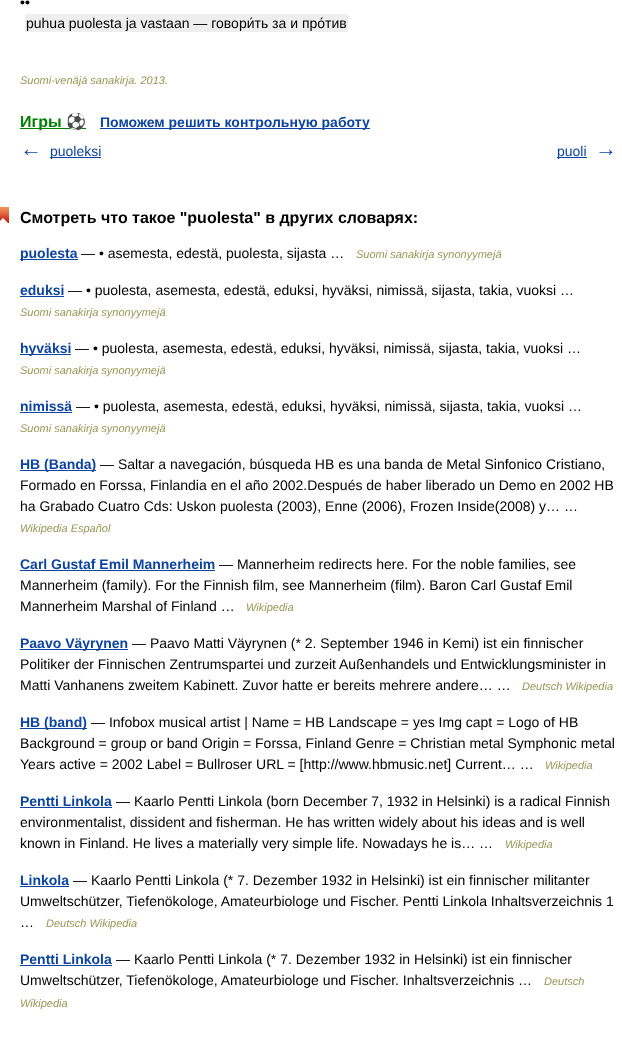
<?xml version="1.0" encoding="UTF-8"?>
<svg xmlns="http://www.w3.org/2000/svg" xmlns:xlink="http://www.w3.org/1999/xlink" width="622" height="1054">
  <rect width="100%" height="100%" fill="#ffffff" />
  <rect x="25" y="14" width="323" height="18" fill="#eeeeee" />
  <rect x="20" y="128" width="66" height="1" fill="#008000" />
  <rect x="100" y="128" width="270" height="1" fill="#0d44a0" />
  <rect x="50" y="157" width="51" height="1" fill="#0d44a0" />
  <rect x="557" y="157" width="30" height="1" fill="#0d44a0" />
  <image x="0" y="207" width="9" height="16" xlink:href="image1.png" />
  <rect x="20" y="259" width="58" height="1" fill="#0d44a0" />
  <rect x="20" y="296" width="44" height="1" fill="#0d44a0" />
  <rect x="20" y="354" width="51" height="1" fill="#0d44a0" />
  <rect x="20" y="412" width="52" height="1" fill="#0d44a0" />
  <rect x="20" y="470" width="76" height="1" fill="#0d44a0" />
  <rect x="20" y="570" width="195" height="1" fill="#0d44a0" />
  <rect x="20" y="649" width="108" height="1" fill="#0d44a0" />
  <rect x="20" y="728" width="67" height="1" fill="#0d44a0" />
  <rect x="20" y="807" width="92" height="1" fill="#0d44a0" />
  <rect x="20" y="886" width="49" height="1" fill="#0d44a0" />
  <rect x="20" y="965" width="92" height="1" fill="#0d44a0" />
  <text x="20" y="7" style="font-family: Liberation Sans; font-size: 14px; font-weight: bold; fill: #000000">••</text>
  <text x="26" y="28" style="font-family: Liberation Sans; font-size: 14px; fill: #000000">puhua puolesta ja vastaan — говори́ть за и про́тив</text>
  <text x="20" y="84" style="font-family: Liberation Sans; font-size: 11px; font-style: italic; fill: #939756">Suomi-venäjä sanakirja. 2013.</text>
  <text x="20" y="127" style="font-family: Liberation Sans; font-size: 16px; font-weight: bold; fill: #008000">Игры</text>
  <text x="66" y="127" style="font-family: Noto Color Emoji; font-size: 16px; font-weight: bold; fill: #008000">⚽</text>
  <text x="100" y="127" style="font-family: Liberation Sans; font-size: 14px; font-weight: bold; fill: #0d44a0">Поможем решить контрольную работу</text>
  <text x="20" y="156" style="font-family: Liberation Sans; font-size: 22px; font-weight: bold; fill: #0d44a0">←</text>
  <text x="50" y="156" style="font-family: Liberation Sans; font-size: 14px; fill: #0d44a0">puoleksi</text>
  <text x="557" y="156" style="font-family: Liberation Sans; font-size: 14px; fill: #0d44a0">puoli</text>
  <text x="595" y="156" style="font-family: Liberation Sans; font-size: 22px; font-weight: bold; fill: #0d44a0">→</text>
  <text x="20" y="223" style="font-family: Liberation Sans; font-size: 16px; font-weight: bold; fill: #000000">Смотреть что такое "puolesta" в других словарях:</text>
  <text x="20" y="258" style="font-family: Liberation Sans; font-size: 14px; font-weight: bold; fill: #0d44a0">puolesta</text>
  <text x="81" y="258" style="font-family: Liberation Sans; font-size: 14px; fill: #000000">— • asemesta, edestä, puolesta, sijasta …</text>
  <text x="356" y="258" style="font-family: Liberation Sans; font-size: 11px; font-style: italic; fill: #939756">Suomi sanakirja synonyymejä</text>
  <text x="20" y="295" style="font-family: Liberation Sans; font-size: 14px; font-weight: bold; fill: #0d44a0">eduksi</text>
  <text x="68" y="295" style="font-family: Liberation Sans; font-size: 14px; fill: #000000">— • puolesta, asemesta, edestä, eduksi, hyväksi, nimissä, sijasta, takia, vuoksi …</text>
  <text x="20" y="316" style="font-family: Liberation Sans; font-size: 11px; font-style: italic; fill: #939756">Suomi sanakirja synonyymejä</text>
  <text x="20" y="353" style="font-family: Liberation Sans; font-size: 14px; font-weight: bold; fill: #0d44a0">hyväksi</text>
  <text x="75" y="353" style="font-family: Liberation Sans; font-size: 14px; fill: #000000">— • puolesta, asemesta, edestä, eduksi, hyväksi, nimissä, sijasta, takia, vuoksi …</text>
  <text x="20" y="374" style="font-family: Liberation Sans; font-size: 11px; font-style: italic; fill: #939756">Suomi sanakirja synonyymejä</text>
  <text x="20" y="411" style="font-family: Liberation Sans; font-size: 14px; font-weight: bold; fill: #0d44a0">nimissä</text>
  <text x="76" y="411" style="font-family: Liberation Sans; font-size: 14px; fill: #000000">— • puolesta, asemesta, edestä, eduksi, hyväksi, nimissä, sijasta, takia, vuoksi …</text>
  <text x="20" y="432" style="font-family: Liberation Sans; font-size: 11px; font-style: italic; fill: #939756">Suomi sanakirja synonyymejä</text>
  <text x="20" y="469" style="font-family: Liberation Sans; font-size: 14px; font-weight: bold; fill: #0d44a0">HB (Banda)</text>
  <text x="100" y="469" style="font-family: Liberation Sans; font-size: 14px; fill: #000000">— Saltar a navegación, búsqueda HB es una banda de Metal Sinfonico Cristiano,</text>
  <text x="20" y="490" style="font-family: Liberation Sans; font-size: 14px; fill: #000000">Formado en Forssa, Finlandia en el año 2002.Después de haber liberado un Demo en 2002 HB</text>
  <text x="20" y="511" style="font-family: Liberation Sans; font-size: 14px; fill: #000000">ha Grabado Cuatro Cds: Uskon puolesta (2003), Enne (2006), Frozen Inside(2008) y… …</text>
  <text x="20" y="532" style="font-family: Liberation Sans; font-size: 11px; font-style: italic; fill: #939756">Wikipedia Español</text>
  <text x="20" y="569" style="font-family: Liberation Sans; font-size: 14px; font-weight: bold; fill: #0d44a0">Carl Gustaf Emil Mannerheim</text>
  <text x="219" y="569" style="font-family: Liberation Sans; font-size: 14px; fill: #000000">— Mannerheim redirects here. For the noble families, see</text>
  <text x="20" y="590" style="font-family: Liberation Sans; font-size: 14px; fill: #000000">Mannerheim (family). For the Finnish film, see Mannerheim (film). Baron Carl Gustaf Emil</text>
  <text x="20" y="611" style="font-family: Liberation Sans; font-size: 14px; fill: #000000">Mannerheim Marshal of Finland …</text>
  <text x="246" y="611" style="font-family: Liberation Sans; font-size: 11px; font-style: italic; fill: #939756">Wikipedia</text>
  <text x="20" y="648" style="font-family: Liberation Sans; font-size: 14px; font-weight: bold; fill: #0d44a0">Paavo Väyrynen</text>
  <text x="132" y="648" style="font-family: Liberation Sans; font-size: 14px; fill: #000000">— Paavo Matti Väyrynen (* 2. September 1946 in Kemi) ist ein finnischer</text>
  <text x="20" y="669" style="font-family: Liberation Sans; font-size: 14px; fill: #000000">Politiker der Finnischen Zentrumspartei und zurzeit Außenhandels und Entwicklungsminister in</text>
  <text x="20" y="690" style="font-family: Liberation Sans; font-size: 14px; fill: #000000">Matti Vanhanens zweitem Kabinett. Zuvor hatte er bereits mehrere andere… …</text>
  <text x="522" y="690" style="font-family: Liberation Sans; font-size: 11px; font-style: italic; fill: #939756">Deutsch Wikipedia</text>
  <text x="20" y="727" style="font-family: Liberation Sans; font-size: 14px; font-weight: bold; fill: #0d44a0">HB (band)</text>
  <text x="91" y="727" style="font-family: Liberation Sans; font-size: 14px; fill: #000000">— Infobox musical artist | Name = HB Landscape = yes Img capt = Logo of HB</text>
  <text x="20" y="748" style="font-family: Liberation Sans; font-size: 14px; fill: #000000">Background = group or band Origin = Forssa, Finland Genre = Christian metal Symphonic metal</text>
  <text x="20" y="769" style="font-family: Liberation Sans; font-size: 14px; fill: #000000">Years active = 2002 Label = Bullroser URL = [http://www.hbmusic.net] Current… …</text>
  <text x="545" y="769" style="font-family: Liberation Sans; font-size: 11px; font-style: italic; fill: #939756">Wikipedia</text>
  <text x="20" y="806" style="font-family: Liberation Sans; font-size: 14px; font-weight: bold; fill: #0d44a0">Pentti Linkola</text>
  <text x="116" y="806" style="font-family: Liberation Sans; font-size: 14px; fill: #000000">— Kaarlo Pentti Linkola (born December 7, 1932 in Helsinki) is a radical Finnish</text>
  <text x="20" y="827" style="font-family: Liberation Sans; font-size: 14px; fill: #000000">environmentalist, dissident and fisherman. He has written widely about his ideas and is well</text>
  <text x="20" y="848" style="font-family: Liberation Sans; font-size: 14px; fill: #000000">known in Finland. He lives a materially very simple life. Nowadays he is… …</text>
  <text x="505" y="848" style="font-family: Liberation Sans; font-size: 11px; font-style: italic; fill: #939756">Wikipedia</text>
  <text x="20" y="885" style="font-family: Liberation Sans; font-size: 14px; font-weight: bold; fill: #0d44a0">Linkola</text>
  <text x="73" y="885" style="font-family: Liberation Sans; font-size: 14px; fill: #000000">— Kaarlo Pentti Linkola (* 7. Dezember 1932 in Helsinki) ist ein finnischer militanter</text>
  <text x="20" y="906" style="font-family: Liberation Sans; font-size: 14px; fill: #000000">Umweltschützer, Tiefenökologe, Amateurbiologe und Fischer. Pentti Linkola Inhaltsverzeichnis 1</text>
  <text x="20" y="927" style="font-family: Liberation Sans; font-size: 14px; fill: #000000">…</text>
  <text x="46" y="927" style="font-family: Liberation Sans; font-size: 11px; font-style: italic; fill: #939756">Deutsch Wikipedia</text>
  <text x="20" y="964" style="font-family: Liberation Sans; font-size: 14px; font-weight: bold; fill: #0d44a0">Pentti Linkola</text>
  <text x="116" y="964" style="font-family: Liberation Sans; font-size: 14px; fill: #000000">— Kaarlo Pentti Linkola (* 7. Dezember 1932 in Helsinki) ist ein finnischer</text>
  <text x="20" y="985" style="font-family: Liberation Sans; font-size: 14px; fill: #000000">Umweltschützer, Tiefenökologe, Amateurbiologe und Fischer. Inhaltsverzeichnis …</text>
  <text x="544" y="985" style="font-family: Liberation Sans; font-size: 11px; font-style: italic; fill: #939756">Deutsch</text>
  <text x="20" y="1007" style="font-family: Liberation Sans; font-size: 11px; font-style: italic; fill: #939756">Wikipedia</text>
</svg>
